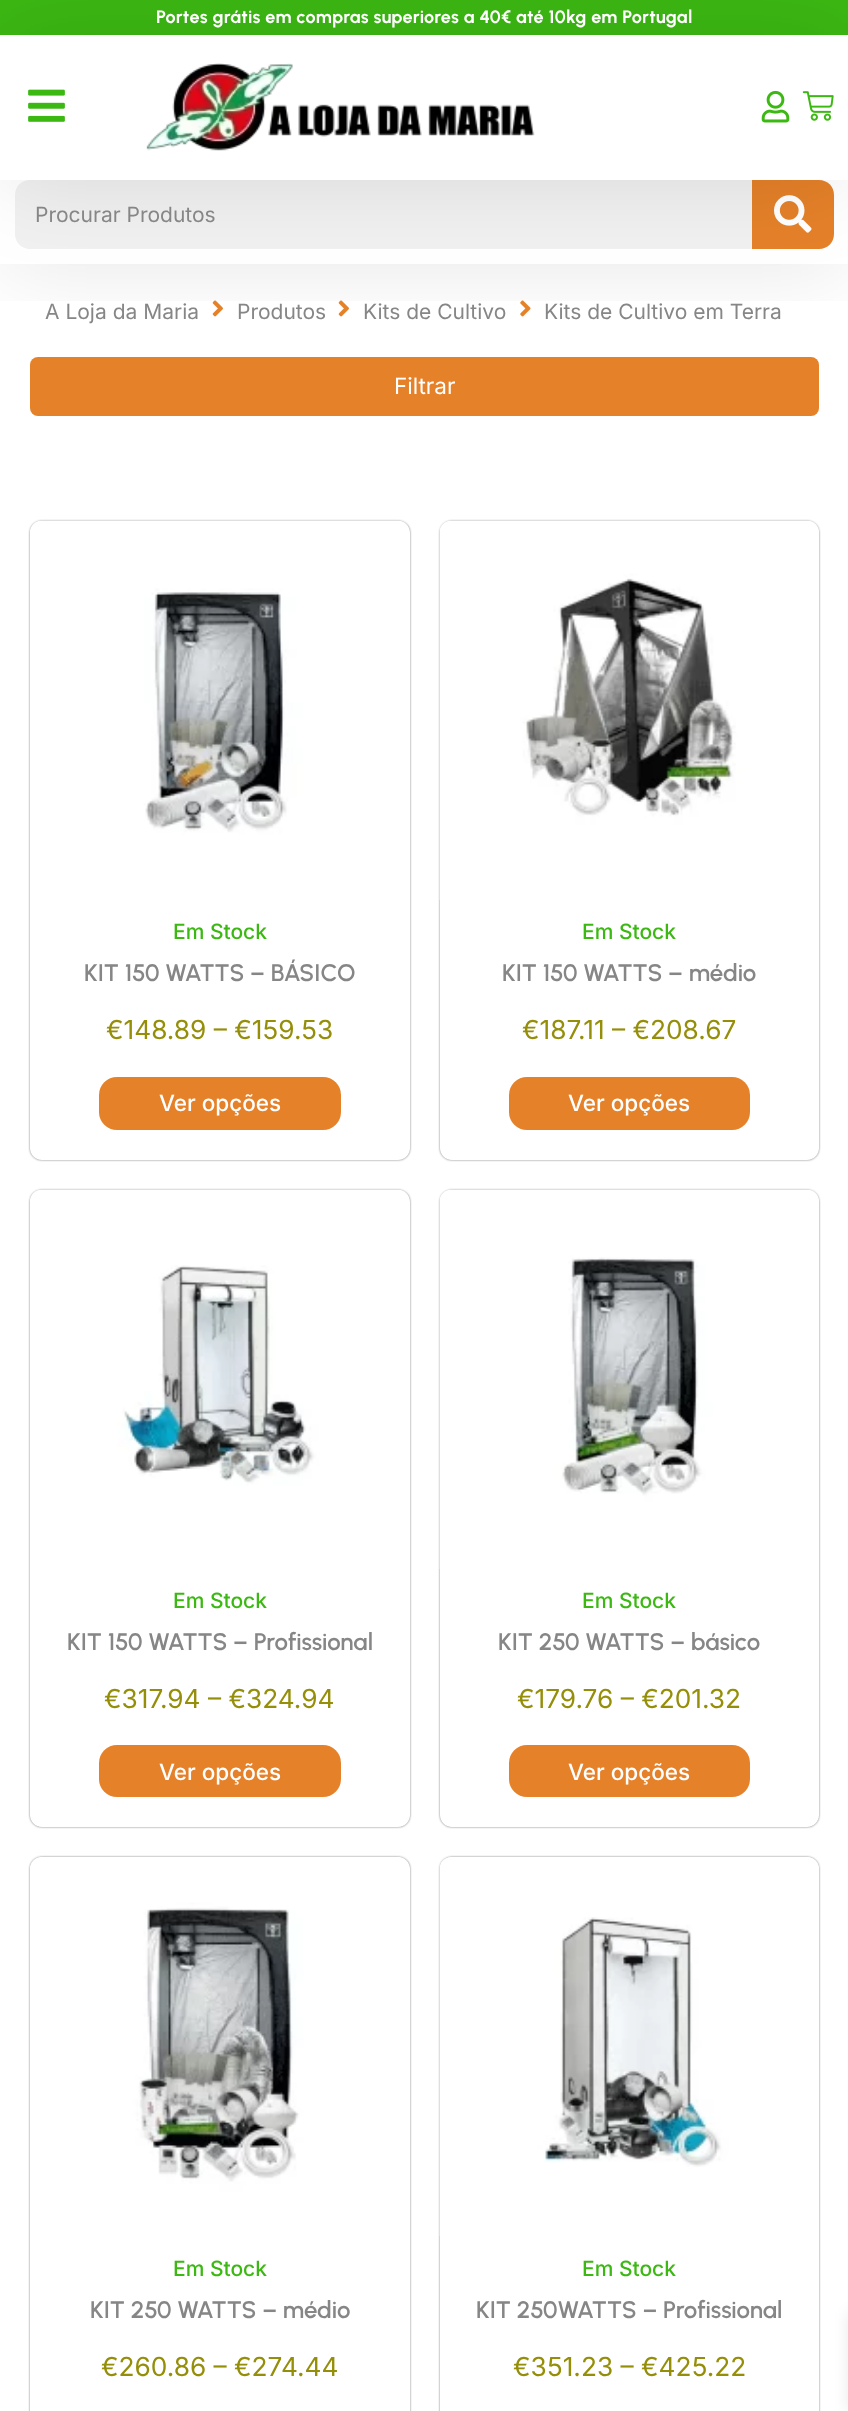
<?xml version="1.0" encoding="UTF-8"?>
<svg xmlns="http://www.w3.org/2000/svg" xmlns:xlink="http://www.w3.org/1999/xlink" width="848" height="2411">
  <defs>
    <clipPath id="clip1"><rect x="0" y="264" width="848" height="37" /></clipPath>
    <clipPath id="clip2"><path d="M 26 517 h 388 v 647 h -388 z m 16 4 h 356 c 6.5 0 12 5.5 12 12 v 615 c 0 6.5 -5.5 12 -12 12 h -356 c -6.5 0 -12 -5.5 -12 -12 v -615 c 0 -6.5 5.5 -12 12 -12 z" clip-rule="evenodd" /></clipPath>
    <clipPath id="clip3"><path d="M 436 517 h 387 v 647 h -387 z m 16 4 h 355 c 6.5 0 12 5.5 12 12 v 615 c 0 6.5 -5.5 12 -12 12 h -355 c -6.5 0 -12 -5.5 -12 -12 v -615 c 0 -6.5 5.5 -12 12 -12 z" clip-rule="evenodd" /></clipPath>
    <clipPath id="clip4"><path d="M 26 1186 h 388 v 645 h -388 z m 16 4 h 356 c 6.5 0 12 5.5 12 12 v 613 c 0 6.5 -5.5 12 -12 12 h -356 c -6.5 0 -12 -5.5 -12 -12 v -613 c 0 -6.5 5.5 -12 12 -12 z" clip-rule="evenodd" /></clipPath>
    <clipPath id="clip5"><path d="M 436 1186 h 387 v 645 h -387 z m 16 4 h 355 c 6.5 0 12 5.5 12 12 v 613 c 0 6.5 -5.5 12 -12 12 h -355 c -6.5 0 -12 -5.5 -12 -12 v -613 c 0 -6.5 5.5 -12 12 -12 z" clip-rule="evenodd" /></clipPath>
    <clipPath id="clip6"><path d="M 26 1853 h 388 v 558 h -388 z m 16 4 h 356 c 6.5 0 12 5.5 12 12 v 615 c 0 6.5 -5.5 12 -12 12 h -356 c -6.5 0 -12 -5.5 -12 -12 v -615 c 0 -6.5 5.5 -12 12 -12 z" clip-rule="evenodd" /></clipPath>
    <clipPath id="clip7"><path d="M 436 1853 h 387 v 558 h -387 z m 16 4 h 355 c 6.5 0 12 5.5 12 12 v 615 c 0 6.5 -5.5 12 -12 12 h -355 c -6.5 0 -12 -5.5 -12 -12 v -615 c 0 -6.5 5.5 -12 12 -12 z" clip-rule="evenodd" /></clipPath>
  </defs>
  <rect width="100%" height="100%" fill="#ffffff" />
  <rect width="848" height="35" fill="#3cb813" />
  <g clip-path="url(#clip1)">
    <rect y="180" width="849" height="84" fill="#000000" fill-opacity="0.1" filter="blur(45px)" />
  </g>
  <path d="M 30 180 h 722 v 69 h -722 c -8.5 0 -15 -6.5 -15 -15 v -39 c 0 -8.5 6.5 -15 15 -15 z" fill="#f1f1f1" />
  <path d="M 752 180 h 67 c 8.5 0 15 6.5 15 15 v 39 c 0 8.5 -6.5 15 -15 15 h -67 z" fill="#e58129" />
  <image x="774" y="195" width="38" height="38" xlink:href="image5.png" />
  <image x="212" y="300" width="11" height="17" xlink:href="image6.png" />
  <image x="338" y="300" width="11" height="17" xlink:href="image6.png" />
  <image x="520" y="300" width="11" height="17" xlink:href="image7.png" />
  <rect y="35" width="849" height="145" fill="#000000" fill-opacity="0.1" filter="blur(45px)" />
  <rect y="35" width="848" height="145" fill="#ffffff" />
  <image x="28" y="89" width="37" height="33" xlink:href="image1.png" />
  <image x="146" y="63" width="389" height="88" xlink:href="image2.png" />
  <image x="761" y="90" width="29" height="33" xlink:href="image3.png" />
  <image x="802" y="91" width="32" height="30" xlink:href="image4.png" />
  <rect x="30" y="357" width="789" height="59" rx="8" fill="#e58129" />
  <g clip-path="url(#clip2)">
    <rect x="30" y="521" width="380" height="639" rx="12" fill="#000000" fill-opacity="0.5" filter="blur(1px)" />
  </g>
  <image x="30" y="520" width="380" height="380" xlink:href="image8.png" />
  <rect x="99" y="1077" width="242" height="53" rx="18" fill="#e58129" />
  <g clip-path="url(#clip3)">
    <rect x="440" y="521" width="379" height="639" rx="12" fill="#000000" fill-opacity="0.5" filter="blur(1px)" />
  </g>
  <image x="439" y="520" width="380" height="380" xlink:href="image9.png" />
  <rect x="509" y="1077" width="241" height="53" rx="18" fill="#e58129" />
  <g clip-path="url(#clip4)">
    <rect x="30" y="1190" width="380" height="637" rx="12" fill="#000000" fill-opacity="0.5" filter="blur(1px)" />
  </g>
  <image x="30" y="1189" width="380" height="380" xlink:href="image10.png" />
  <rect x="99" y="1745" width="242" height="52" rx="18" fill="#e58129" />
  <g clip-path="url(#clip5)">
    <rect x="440" y="1190" width="379" height="637" rx="12" fill="#000000" fill-opacity="0.5" filter="blur(1px)" />
  </g>
  <image x="439" y="1189" width="380" height="380" xlink:href="image11.png" />
  <rect x="509" y="1745" width="241" height="52" rx="18" fill="#e58129" />
  <g clip-path="url(#clip6)">
    <rect x="30" y="1857" width="380" height="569" rx="12" fill="#000000" fill-opacity="0.5" filter="blur(1px)" />
  </g>
  <image x="30" y="1857" width="380" height="380" xlink:href="image12.png" />
  <g clip-path="url(#clip7)">
    <rect x="440" y="1857" width="379" height="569" rx="12" fill="#000000" fill-opacity="0.5" filter="blur(1px)" />
  </g>
  <image x="439" y="1857" width="380" height="379" xlink:href="image13.png" />
  <rect x="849" y="2313" width="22" height="98" fill="#000000" fill-opacity="0.1" filter="blur(7.5px)" />
  <text x="156" y="23" style="font-family: Urbanist; font-size: 18px; font-weight: bold; letter-spacing: 0.3px; fill: #ffffff">Portes grátis em compras superiores a 40€ até 10kg em Portugal</text>
  <text x="35" y="222" style="font-family: Inter; font-size: 21px; fill: #868686">Procurar Produtos</text>
  <text x="45" y="319" style="font-family: Inter; font-size: 21px; fill: #868686">A Loja da Maria</text>
  <text x="237" y="319" style="font-family: Inter; font-size: 21px; fill: #868686">Produtos</text>
  <text x="363" y="319" style="font-family: Inter; font-size: 21px; fill: #868686">Kits de Cultivo</text>
  <text x="544" y="319" style="font-family: Inter; font-size: 21px; fill: #868686">Kits de Cultivo em Terra</text>
  <text x="394" y="394" style="font-family: Inter; font-size: 22.5px; fill: #ffffff">Filtrar</text>
  <text x="173" y="939" style="font-family: Inter; font-size: 21px; font-weight: 500; fill: #3cb813">Em Stock</text>
  <text x="84" y="981" style="font-family: Urbanist; font-size: 24px; font-weight: 600; fill: #868686">KIT 150 WATTS – BÁSICO</text>
  <text x="106" y="1039" style="font-family: Inter; font-size: 26.25px; fill: #958e09">€148.89 – €159.53</text>
  <text x="159" y="1111" style="font-family: Inter; font-size: 22.5px; font-weight: 500; fill: #ffffff">Ver opções</text>
  <text x="582" y="939" style="font-family: Inter; font-size: 21px; font-weight: 500; fill: #3cb813">Em Stock</text>
  <text x="502" y="981" style="font-family: Urbanist; font-size: 24px; font-weight: 600; fill: #868686">KIT 150 WATTS – médio</text>
  <text x="522" y="1039" style="font-family: Inter; font-size: 26.25px; fill: #958e09">€187.11 – €208.67</text>
  <text x="568" y="1111" style="font-family: Inter; font-size: 22.5px; font-weight: 500; fill: #ffffff">Ver opções</text>
  <text x="173" y="1608" style="font-family: Inter; font-size: 21px; font-weight: 500; fill: #3cb813">Em Stock</text>
  <text x="67" y="1650" style="font-family: Urbanist; font-size: 24px; font-weight: 600; fill: #868686">KIT 150 WATTS – Profissional</text>
  <text x="104" y="1708" style="font-family: Inter; font-size: 26.25px; fill: #958e09">€317.94 – €324.94</text>
  <text x="159" y="1780" style="font-family: Inter; font-size: 22.5px; font-weight: 500; fill: #ffffff">Ver opções</text>
  <text x="582" y="1608" style="font-family: Inter; font-size: 21px; font-weight: 500; fill: #3cb813">Em Stock</text>
  <text x="498" y="1650" style="font-family: Urbanist; font-size: 24px; font-weight: 600; fill: #868686">KIT 250 WATTS – básico</text>
  <text x="517" y="1708" style="font-family: Inter; font-size: 26.25px; fill: #958e09">€179.76 – €201.32</text>
  <text x="568" y="1780" style="font-family: Inter; font-size: 22.5px; font-weight: 500; fill: #ffffff">Ver opções</text>
  <text x="173" y="2276" style="font-family: Inter; font-size: 21px; font-weight: 500; fill: #3cb813">Em Stock</text>
  <text x="90" y="2318" style="font-family: Urbanist; font-size: 24px; font-weight: 600; fill: #868686">KIT 250 WATTS – médio</text>
  <text x="101" y="2376" style="font-family: Inter; font-size: 26.25px; fill: #958e09">€260.86 – €274.44</text>
  <text x="582" y="2276" style="font-family: Inter; font-size: 21px; font-weight: 500; fill: #3cb813">Em Stock</text>
  <text x="476" y="2318" style="font-family: Urbanist; font-size: 24px; font-weight: 600; fill: #868686">KIT 250WATTS – Profissional</text>
  <text x="513" y="2376" style="font-family: Inter; font-size: 26.25px; fill: #958e09">€351.23 – €425.22</text>
</svg>
